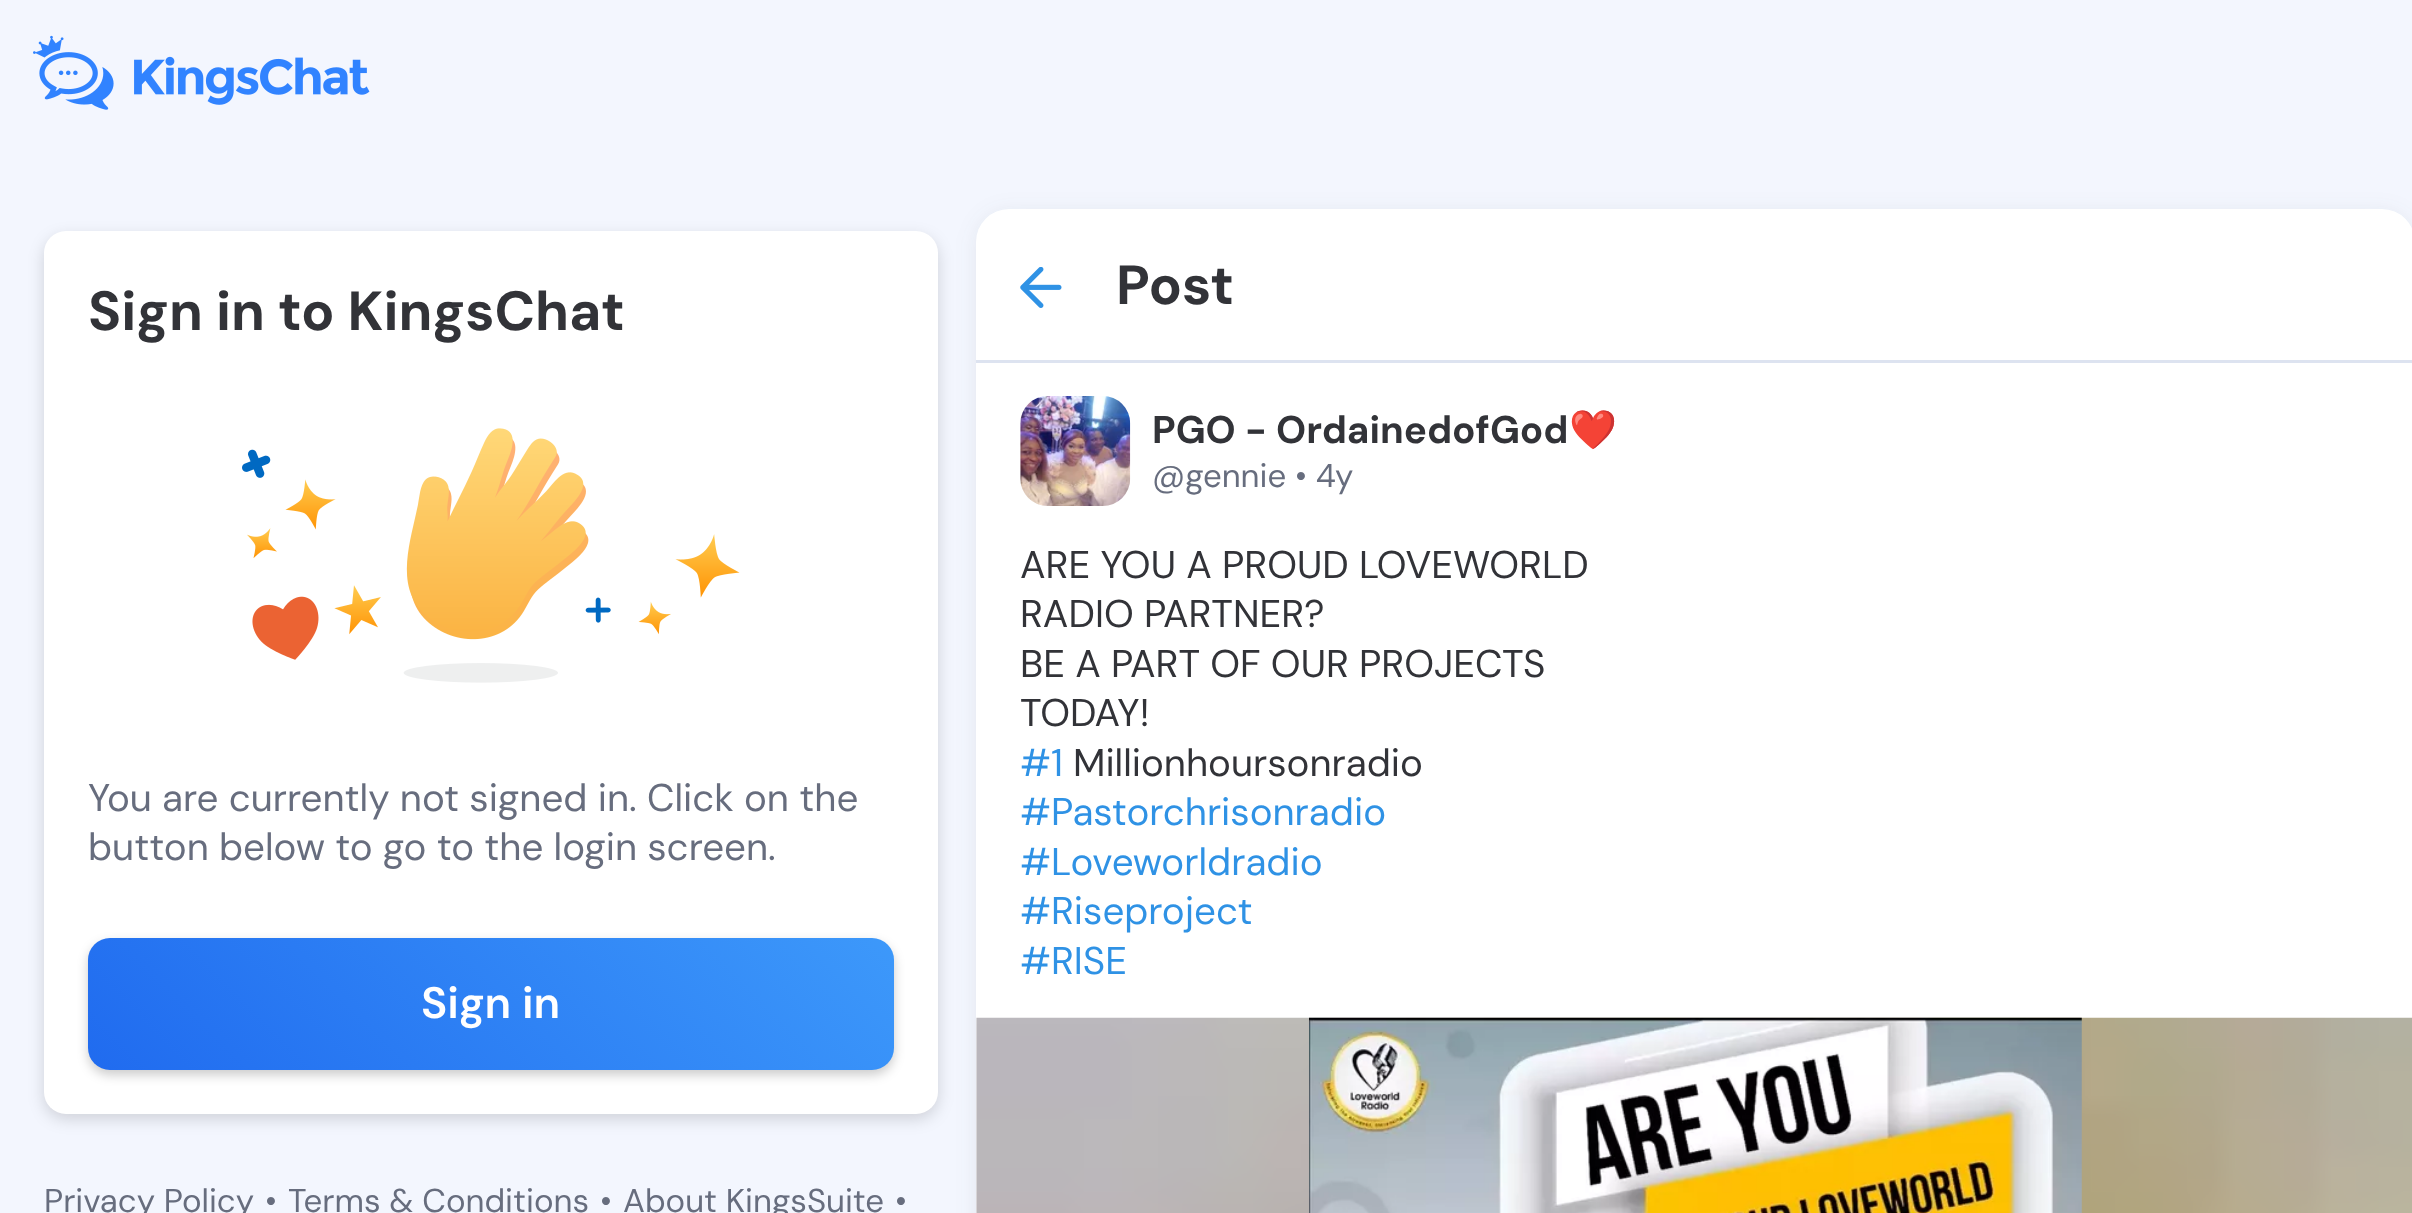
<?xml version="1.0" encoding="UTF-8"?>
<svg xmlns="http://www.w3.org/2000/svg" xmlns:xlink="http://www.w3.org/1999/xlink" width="2412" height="1213">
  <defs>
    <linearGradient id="g1" gradientUnits="userSpaceOnUse" x1="357" y1="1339" x2="1027" y2="669"><stop offset="0" stop-color="#206bef" /><stop offset="1" stop-color="#49acff" /></linearGradient>
  </defs>
  <rect width="100%" height="100%" fill="#f3f6fe" />
  <image x="33" y="35" width="337" height="75" xlink:href="image1.png" />
  <rect x="44" y="237" width="894" height="882" rx="22" fill="#000000" fill-opacity="0.15" filter="blur(8px)" />
  <rect x="44" y="231" width="894" height="883" rx="22" fill="#ffffff" />
  <image x="242" y="428" width="498" height="255" xlink:href="image2.png" />
  <rect x="88" y="943" width="806" height="132" rx="22" fill="#000000" fill-opacity="0.2" filter="blur(5.5px)" />
  <rect x="88" y="938" width="806" height="132" rx="22" fill="url(#g1)" />
  <rect x="976" y="212" width="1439" height="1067" rx="33" fill="#393d46" fill-opacity="0.08" filter="blur(11px)" />
  <rect x="976" y="209" width="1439" height="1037" rx="33" fill="#ffffff" />
  <rect x="976" y="360" width="1436" height="3" fill="#dde3f0" />
  <image x="1020" y="267" width="42" height="41" xlink:href="image3.png" />
  <image x="1020" y="396" width="111" height="110" xlink:href="image4.png" />
  <image x="976" y="1017" width="1436" height="196" xlink:href="image5.png" />
  <image x="1309" y="1017" width="773" height="196" xlink:href="image6.png" />
  <text x="88" y="330" style="font-family: DM Sans; font-size: 55px; font-weight: bold; fill: #323338">Sign in to KingsChat</text>
  <text x="88" y="811" style="font-family: DM Sans; font-size: 38.5px; fill: #676d7e">You are currently not signed in. Click on the</text>
  <text x="88" y="860" style="font-family: DM Sans; font-size: 38.5px; fill: #676d7e">button below to go to the login screen.</text>
  <text x="421" y="1018" style="font-family: DM Sans; font-size: 44px; font-weight: 600; fill: #ffffff">Sign in</text>
  <text x="44" y="1212" style="font-family: DM Sans; font-size: 33px; fill: #676d7e">Privacy Policy</text>
  <text x="265" y="1212" style="font-family: DM Sans; font-size: 33px; fill: #676d7e">•</text>
  <text x="288" y="1212" style="font-family: DM Sans; font-size: 33px; fill: #676d7e">Terms &amp; Conditions</text>
  <text x="600" y="1212" style="font-family: DM Sans; font-size: 33px; fill: #676d7e">•</text>
  <text x="623" y="1212" style="font-family: DM Sans; font-size: 33px; fill: #676d7e">About KingsSuite</text>
  <text x="895" y="1212" style="font-family: DM Sans; font-size: 33px; fill: #676d7e">•</text>
  <text x="1116" y="304" style="font-family: DM Sans; font-size: 55px; font-weight: bold; fill: #323338">Post</text>
  <text x="1152" y="443" style="font-family: DM Sans; font-size: 38.5px; font-weight: bold; fill: #323338">PGO - OrdainedofGod</text>
  <text x="1569" y="443" style="font-family: Noto Color Emoji; font-size: 38.5px; font-weight: bold; fill: #323338">❤</text>
  <text x="1152" y="487" style="font-family: DM Sans; font-size: 33px; fill: #676d7e">@gennie • 4y</text>
  <text x="1020" y="578" style="font-family: DM Sans; font-size: 38.5px; fill: #323338">ARE YOU A PROUD LOVEWORLD</text>
  <text x="1020" y="627" style="font-family: DM Sans; font-size: 38.5px; fill: #323338">RADIO PARTNER?</text>
  <text x="1020" y="677" style="font-family: DM Sans; font-size: 38.5px; fill: #323338">BE A PART OF OUR PROJECTS</text>
  <text x="1020" y="726" style="font-family: DM Sans; font-size: 38.5px; fill: #323338">TODAY!</text>
  <text x="1020" y="776" style="font-family: DM Sans; font-size: 38.5px; fill: #2f92e5">#1</text>
  <text x="1073" y="776" style="font-family: DM Sans; font-size: 38.5px; fill: #323338">Millionhoursonradio</text>
  <text x="1020" y="825" style="font-family: DM Sans; font-size: 38.5px; fill: #2f92e5">#Pastorchrisonradio</text>
  <text x="1020" y="875" style="font-family: DM Sans; font-size: 38.5px; fill: #2f92e5">#Loveworldradio</text>
  <text x="1020" y="924" style="font-family: DM Sans; font-size: 38.5px; fill: #2f92e5">#Riseproject</text>
  <text x="1020" y="974" style="font-family: DM Sans; font-size: 38.5px; fill: #2f92e5">#RISE</text>
</svg>
